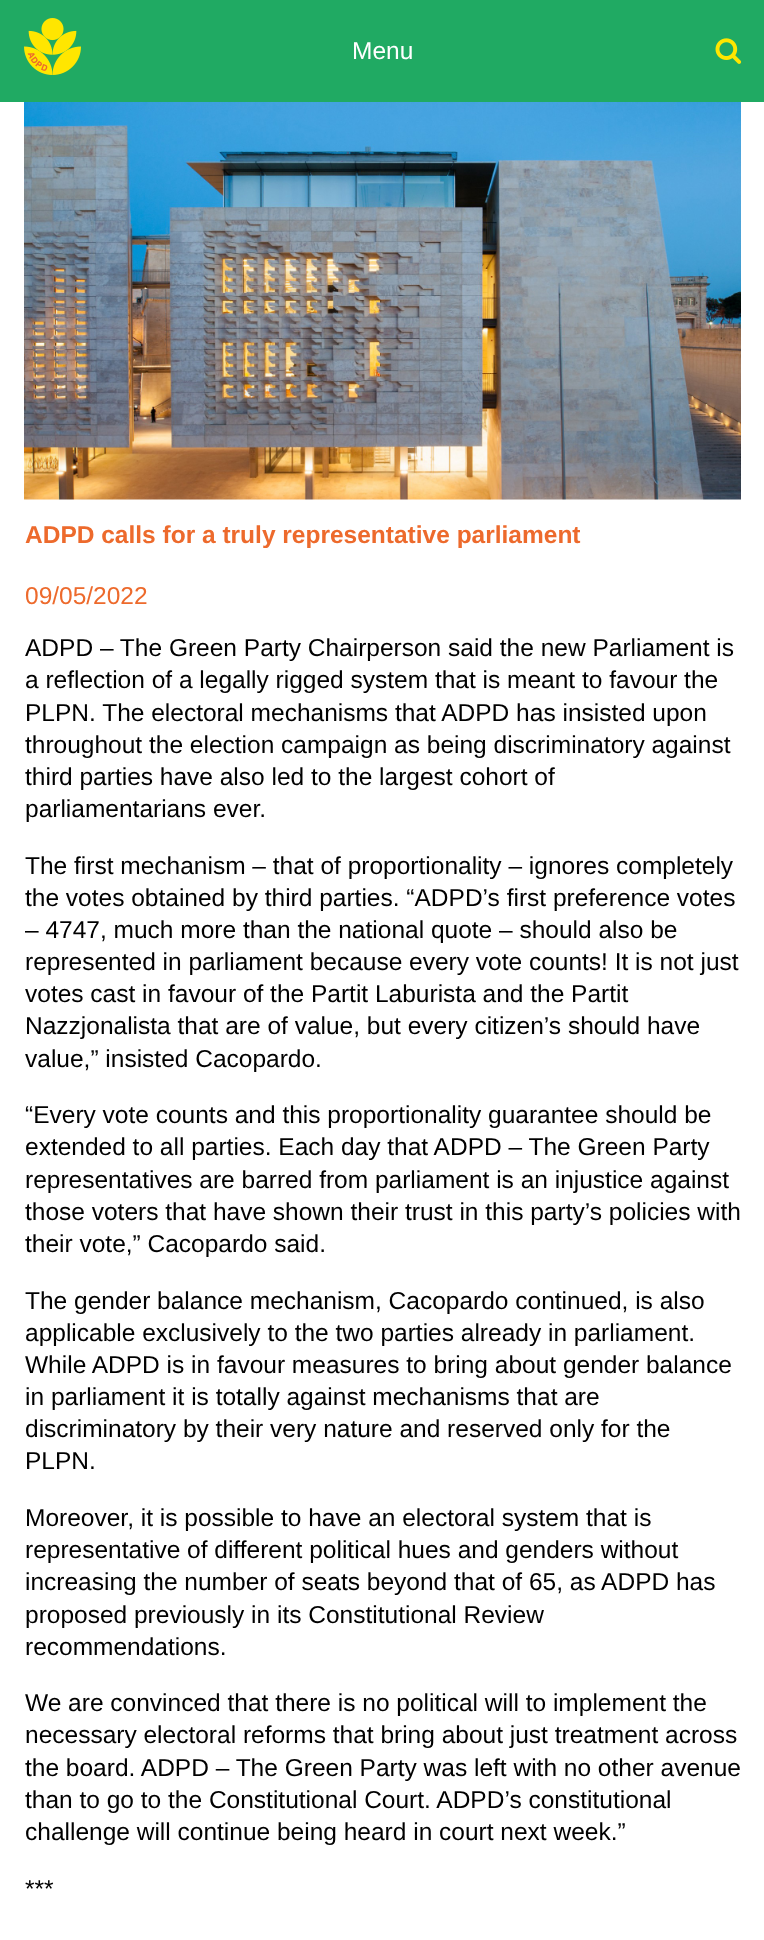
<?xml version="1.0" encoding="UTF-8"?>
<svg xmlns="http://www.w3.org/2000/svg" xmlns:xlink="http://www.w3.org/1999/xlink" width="764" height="1940">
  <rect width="100%" height="100%" fill="#ffffff" />
  <rect width="764" height="102" fill="#20aa63" />
  <image x="24" y="18" width="57" height="57" xlink:href="image1.png" />
  <image x="715" y="38" width="27" height="26" xlink:href="image2.png" />
  <image x="24" y="102" width="717" height="398" xlink:href="image3.png" />
  <text x="352" y="59" style="font-family: Liberation Sans; font-size: 24.5px; fill: #ffffff">Menu</text>
  <text x="25" y="543" style="font-family: Liberation Sans; font-size: 24.5px; font-weight: bold; fill: #ed6a2c">ADPD calls for a truly representative parliament</text>
  <text x="25" y="604" style="font-family: Liberation Sans; font-size: 24.5px; fill: #ed6a2c">09/05/2022</text>
  <text x="25" y="656" style="font-family: Liberation Sans; font-size: 24.5px; fill: #000000">ADPD – The Green Party Chairperson said the new Parliament is</text>
  <text x="25" y="688" style="font-family: Liberation Sans; font-size: 24.5px; fill: #000000">a reflection of a legally rigged system that is meant to favour the</text>
  <text x="25" y="721" style="font-family: Liberation Sans; font-size: 24.5px; fill: #000000">PLPN. The electoral mechanisms that ADPD has insisted upon</text>
  <text x="25" y="753" style="font-family: Liberation Sans; font-size: 24.5px; fill: #000000">throughout the election campaign as being discriminatory against</text>
  <text x="25" y="785" style="font-family: Liberation Sans; font-size: 24.5px; fill: #000000">third parties have also led to the largest cohort of</text>
  <text x="25" y="817" style="font-family: Liberation Sans; font-size: 24.5px; fill: #000000">parliamentarians ever.</text>
  <text x="25" y="874" style="font-family: Liberation Sans; font-size: 24.5px; fill: #000000">The first mechanism – that of proportionality – ignores completely</text>
  <text x="25" y="906" style="font-family: Liberation Sans; font-size: 24.5px; fill: #000000">the votes obtained by third parties. “ADPD’s first preference votes</text>
  <text x="25" y="938" style="font-family: Liberation Sans; font-size: 24.5px; fill: #000000">– 4747, much more than the national quote – should also be</text>
  <text x="25" y="970" style="font-family: Liberation Sans; font-size: 24.5px; fill: #000000">represented in parliament because every vote counts! It is not just</text>
  <text x="25" y="1002" style="font-family: Liberation Sans; font-size: 24.5px; fill: #000000">votes cast in favour of the Partit Laburista and the Partit</text>
  <text x="25" y="1034" style="font-family: Liberation Sans; font-size: 24.5px; fill: #000000">Nazzjonalista that are of value, but every citizen’s should have</text>
  <text x="25" y="1067" style="font-family: Liberation Sans; font-size: 24.5px; fill: #000000">value,” insisted Cacopardo.</text>
  <text x="25" y="1123" style="font-family: Liberation Sans; font-size: 24.5px; fill: #000000">“Every vote counts and this proportionality guarantee should be</text>
  <text x="25" y="1155" style="font-family: Liberation Sans; font-size: 24.5px; fill: #000000">extended to all parties. Each day that ADPD – The Green Party</text>
  <text x="25" y="1188" style="font-family: Liberation Sans; font-size: 24.5px; fill: #000000">representatives are barred from parliament is an injustice against</text>
  <text x="25" y="1220" style="font-family: Liberation Sans; font-size: 24.5px; fill: #000000">those voters that have shown their trust in this party’s policies with</text>
  <text x="25" y="1252" style="font-family: Liberation Sans; font-size: 24.5px; fill: #000000">their vote,” Cacopardo said.</text>
  <text x="25" y="1309" style="font-family: Liberation Sans; font-size: 24.5px; fill: #000000">The gender balance mechanism, Cacopardo continued, is also</text>
  <text x="25" y="1341" style="font-family: Liberation Sans; font-size: 24.5px; fill: #000000">applicable exclusively to the two parties already in parliament.</text>
  <text x="25" y="1373" style="font-family: Liberation Sans; font-size: 24.5px; fill: #000000">While ADPD is in favour measures to bring about gender balance</text>
  <text x="25" y="1405" style="font-family: Liberation Sans; font-size: 24.5px; fill: #000000">in parliament it is totally against mechanisms that are</text>
  <text x="25" y="1437" style="font-family: Liberation Sans; font-size: 24.5px; fill: #000000">discriminatory by their very nature and reserved only for the</text>
  <text x="25" y="1469" style="font-family: Liberation Sans; font-size: 24.5px; fill: #000000">PLPN.</text>
  <text x="25" y="1526" style="font-family: Liberation Sans; font-size: 24.5px; fill: #000000">Moreover, it is possible to have an electoral system that is</text>
  <text x="25" y="1558" style="font-family: Liberation Sans; font-size: 24.5px; fill: #000000">representative of different political hues and genders without</text>
  <text x="25" y="1590" style="font-family: Liberation Sans; font-size: 24.5px; fill: #000000">increasing the number of seats beyond that of 65, as ADPD has</text>
  <text x="25" y="1623" style="font-family: Liberation Sans; font-size: 24.5px; fill: #000000">proposed previously in its Constitutional Review</text>
  <text x="25" y="1655" style="font-family: Liberation Sans; font-size: 24.5px; fill: #000000">recommendations.</text>
  <text x="25" y="1711" style="font-family: Liberation Sans; font-size: 24.5px; fill: #000000">We are convinced that there is no political will to implement the</text>
  <text x="25" y="1743" style="font-family: Liberation Sans; font-size: 24.5px; fill: #000000">necessary electoral reforms that bring about just treatment across</text>
  <text x="25" y="1776" style="font-family: Liberation Sans; font-size: 24.5px; fill: #000000">the board. ADPD – The Green Party was left with no other avenue</text>
  <text x="25" y="1808" style="font-family: Liberation Sans; font-size: 24.5px; fill: #000000">than to go to the Constitutional Court. ADPD’s constitutional</text>
  <text x="25" y="1840" style="font-family: Liberation Sans; font-size: 24.5px; fill: #000000">challenge will continue being heard in court next week.”</text>
  <text x="25" y="1897" style="font-family: Liberation Sans; font-size: 24.5px; fill: #000000">***</text>
</svg>
